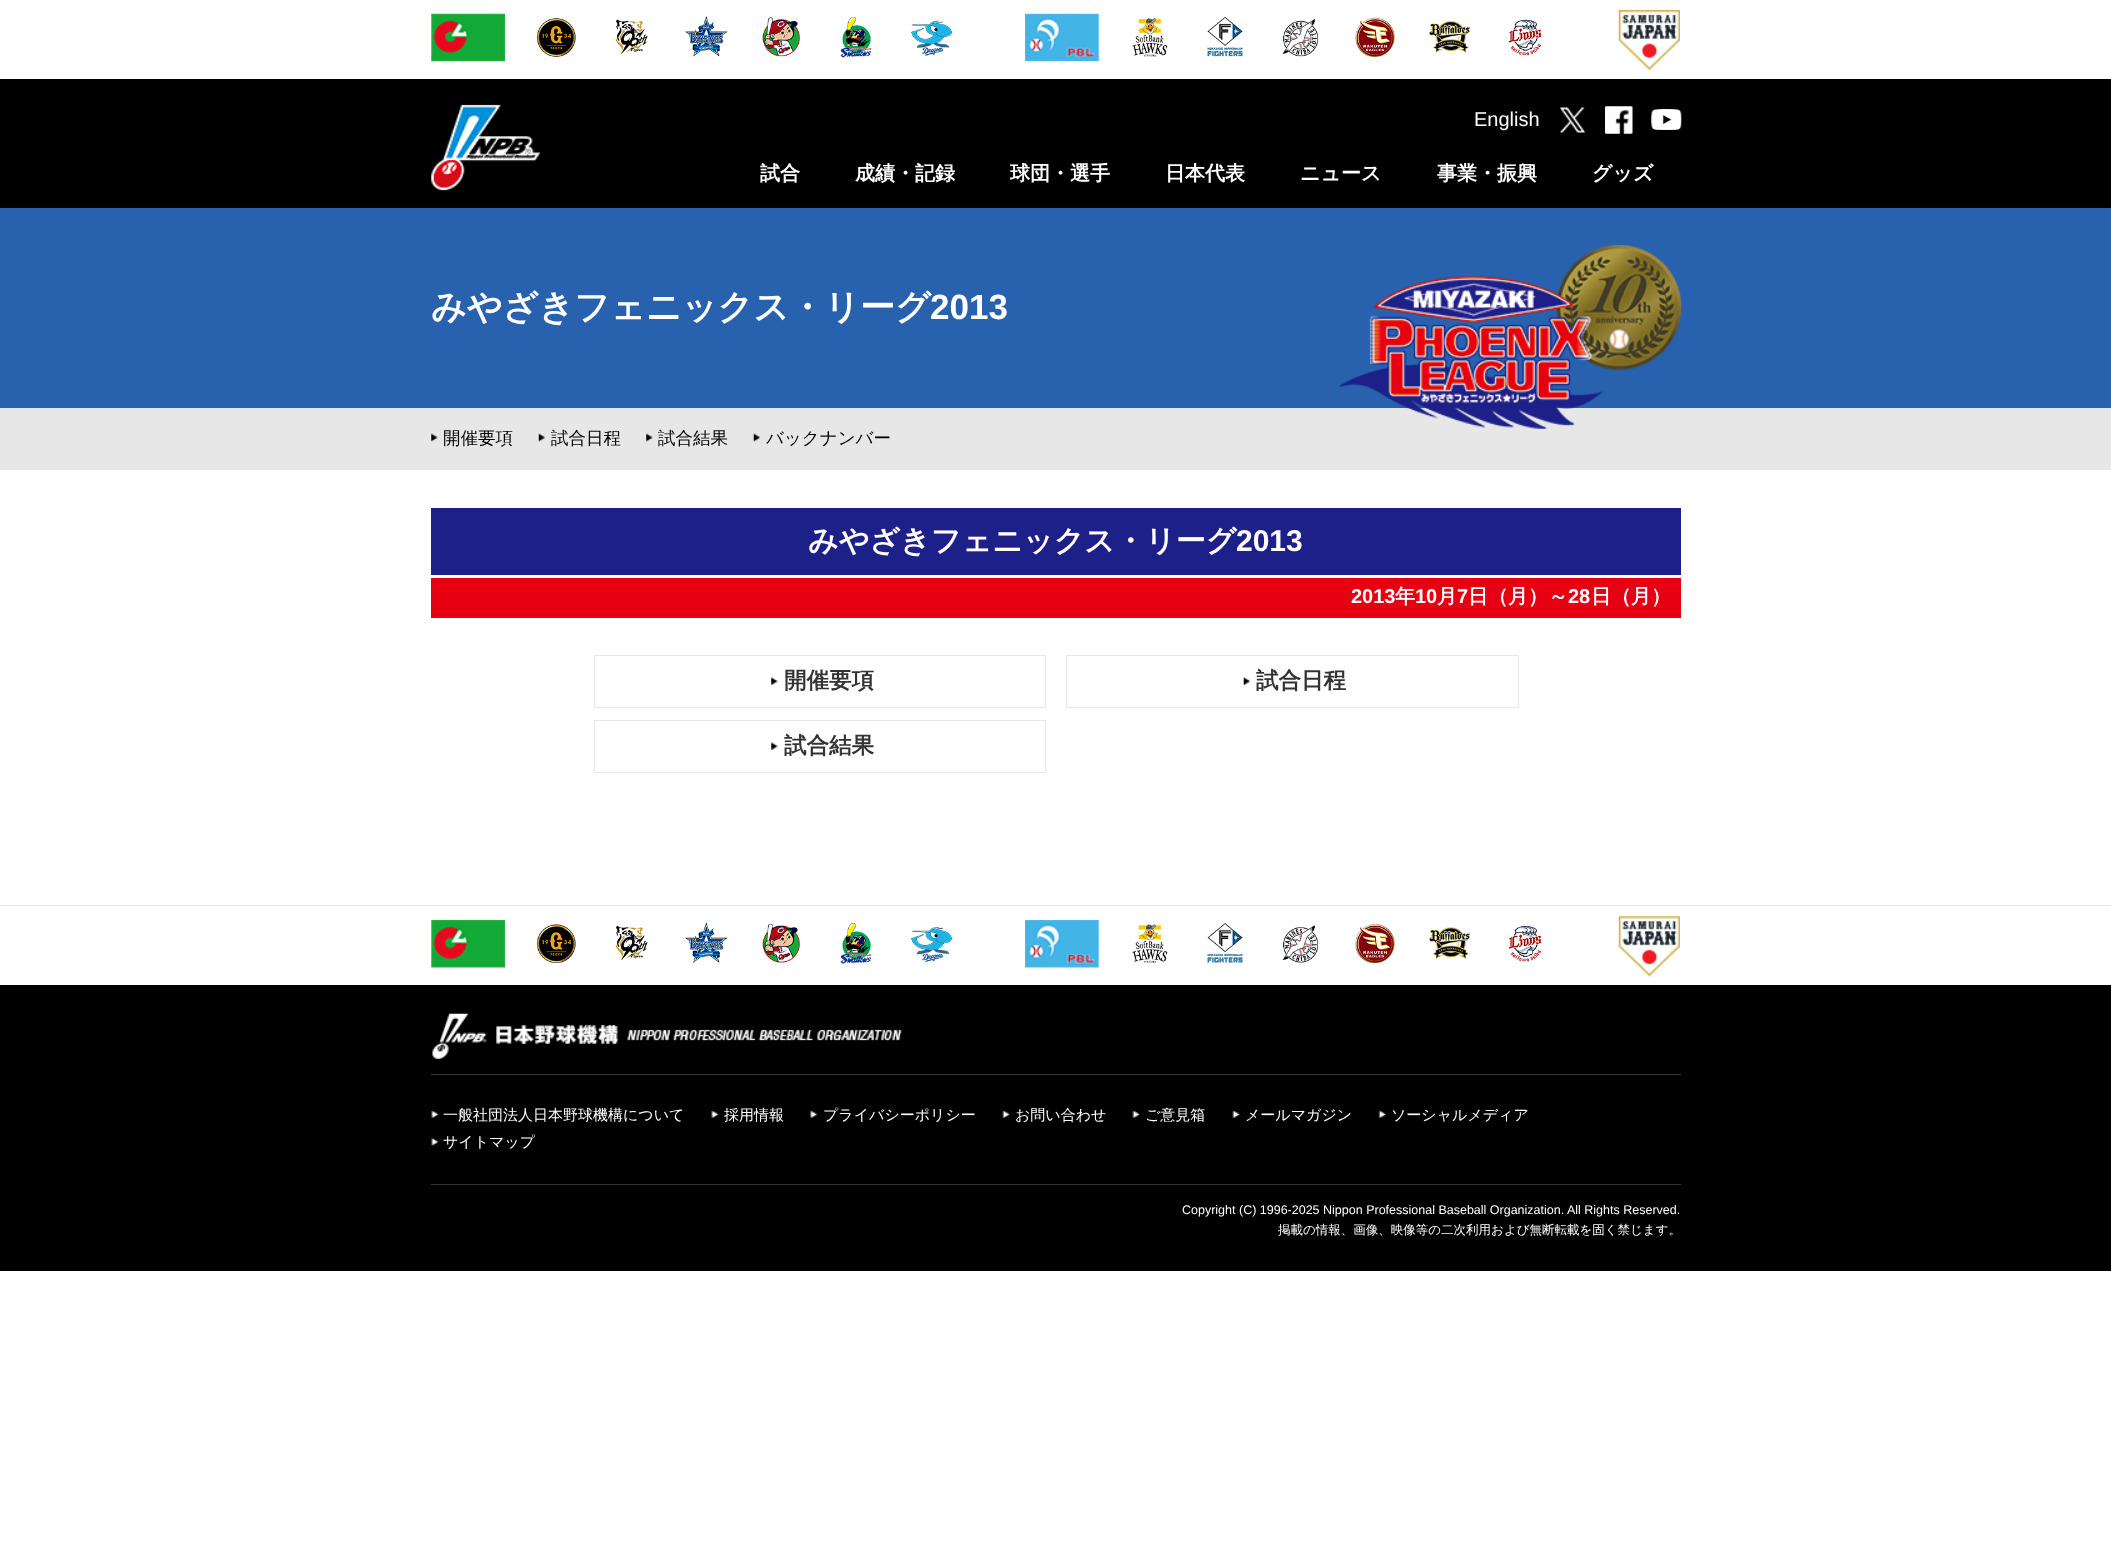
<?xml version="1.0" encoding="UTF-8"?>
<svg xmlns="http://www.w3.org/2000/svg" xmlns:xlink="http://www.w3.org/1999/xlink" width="2111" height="1555">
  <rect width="100%" height="100%" fill="#ffffff" />
  <image x="431" y="13" width="74" height="49" xlink:href="image1.png" />
  <image x="537" y="18" width="39" height="39" xlink:href="image2.png" />
  <image x="615" y="19" width="33" height="35" xlink:href="image3.png" />
  <image x="684" y="16" width="44" height="41" xlink:href="image4.png" />
  <image x="762" y="17" width="38" height="40" xlink:href="image5.png" />
  <image x="840" y="17" width="32" height="41" xlink:href="image6.png" />
  <image x="911" y="20" width="41" height="36" xlink:href="image7.png" />
  <image x="1025" y="13" width="74" height="49" xlink:href="image8.png" />
  <image x="1132" y="18" width="36" height="39" xlink:href="image9.png" />
  <image x="1207" y="17" width="36" height="40" xlink:href="image10.png" />
  <image x="1282" y="19" width="36" height="38" xlink:href="image11.png" />
  <image x="1355" y="17" width="40" height="41" xlink:href="image12.png" />
  <image x="1429" y="20" width="42" height="33" xlink:href="image13.png" />
  <image x="1508" y="19" width="34" height="37" xlink:href="image14.png" />
  <image x="1618" y="10" width="62" height="61" xlink:href="image15.png" />
  <rect y="79" width="2111" height="129" fill="#000000" />
  <image x="431" y="104" width="109" height="87" xlink:href="image16.png" />
  <image x="1559" y="107" width="27" height="26" xlink:href="image17.png" />
  <image x="1605" y="106" width="28" height="28" xlink:href="image18.png" />
  <image x="1651" y="109" width="31" height="21" xlink:href="image19.png" />
  <rect y="208" width="2111" height="200" fill="#2862ae" />
  <rect y="408" width="2111" height="62" fill="#e7e7e7" />
  <image x="1339" y="245" width="343" height="184" xlink:href="image20.png" />
  <image x="431" y="433" width="7" height="9" xlink:href="image21.png" />
  <image x="538" y="433" width="7" height="9" xlink:href="image22.png" />
  <image x="646" y="433" width="7" height="9" xlink:href="image21.png" />
  <image x="753" y="433" width="7" height="9" xlink:href="image23.png" />
  <rect x="431" y="508" width="1250" height="67" fill="#1d2088" />
  <rect x="431" y="578" width="1250" height="40" fill="#e60012" />
  <rect x="594.5" y="655.5" width="451" height="52" fill="none" stroke="#e7e7e7" />
  <image x="771" y="677" width="7" height="8" xlink:href="image24.png" />
  <rect x="1066.5" y="655.5" width="452" height="52" fill="none" stroke="#e7e7e7" />
  <image x="1243" y="677" width="7" height="8" xlink:href="image25.png" />
  <rect x="594.5" y="720.5" width="451" height="52" fill="none" stroke="#e7e7e7" />
  <image x="771" y="742" width="7" height="8" xlink:href="image24.png" />
  <rect y="985" width="2111" height="286" fill="#000000" />
  <rect y="905" width="2111" height="1" fill="#e7e7e7" />
  <image x="431" y="920" width="74" height="48" xlink:href="image26.png" />
  <image x="537" y="924" width="39" height="39" xlink:href="image27.png" />
  <image x="615" y="925" width="33" height="35" xlink:href="image28.png" />
  <image x="684" y="922" width="44" height="41" xlink:href="image29.png" />
  <image x="762" y="923" width="38" height="40" xlink:href="image30.png" />
  <image x="840" y="923" width="32" height="41" xlink:href="image31.png" />
  <image x="911" y="927" width="41" height="35" xlink:href="image32.png" />
  <image x="1025" y="920" width="74" height="48" xlink:href="image33.png" />
  <image x="1132" y="924" width="36" height="39" xlink:href="image34.png" />
  <image x="1207" y="923" width="36" height="40" xlink:href="image35.png" />
  <image x="1282" y="925" width="36" height="38" xlink:href="image36.png" />
  <image x="1355" y="924" width="40" height="40" xlink:href="image37.png" />
  <image x="1429" y="927" width="42" height="33" xlink:href="image38.png" />
  <image x="1508" y="925" width="34" height="37" xlink:href="image39.png" />
  <image x="1618" y="916" width="62" height="61" xlink:href="image40.png" />
  <image x="432" y="1013" width="470" height="46" xlink:href="image41.png" />
  <rect x="431" y="1074" width="1250" height="1" fill="#333333" />
  <rect x="431" y="1184" width="1250" height="1" fill="#333333" />
  <image x="431" y="1110" width="8" height="9" xlink:href="image42.png" />
  <image x="711" y="1110" width="8" height="9" xlink:href="image42.png" />
  <image x="810" y="1110" width="8" height="9" xlink:href="image43.png" />
  <image x="1002" y="1110" width="8" height="9" xlink:href="image44.png" />
  <image x="1132" y="1110" width="8" height="9" xlink:href="image44.png" />
  <image x="1232" y="1110" width="8" height="9" xlink:href="image45.png" />
  <image x="1378" y="1110" width="9" height="9" xlink:href="image46.png" />
  <image x="431" y="1137" width="8" height="9" xlink:href="image47.png" />
  <text x="1474" y="126" style="font-family: Liberation Sans; font-size: 20px; fill: #ffffff">English</text>
  <text x="760" y="180" style="font-family: WenQuanYi Zen Hei; font-size: 20px; font-weight: bold; fill: #ffffff">試合</text>
  <text x="855" y="180" style="font-family: WenQuanYi Zen Hei; font-size: 20px; font-weight: bold; fill: #ffffff">成績・記録</text>
  <text x="1010" y="180" style="font-family: WenQuanYi Zen Hei; font-size: 20px; font-weight: bold; fill: #ffffff">球団・選手</text>
  <text x="1165" y="180" style="font-family: WenQuanYi Zen Hei; font-size: 20px; font-weight: bold; fill: #ffffff">日本代表</text>
  <text x="1300" y="180" style="font-family: WenQuanYi Zen Hei; font-size: 20px; font-weight: bold; fill: #ffffff">ニュース</text>
  <text x="1437" y="180" style="font-family: WenQuanYi Zen Hei; font-size: 20px; font-weight: bold; fill: #ffffff">事業・振興</text>
  <text x="1592" y="180" style="font-family: WenQuanYi Zen Hei; font-size: 20px; font-weight: bold; fill: #ffffff">グッズ</text>
  <text x="431" y="319" style="font-family: WenQuanYi Zen Hei; font-size: 35px; font-weight: bold; fill: #ffffff">みやざきフェニックス・リーグ</text>
  <text x="930" y="319" style="font-family: Liberation Sans; font-size: 35px; font-weight: bold; fill: #ffffff">2013</text>
  <text x="443" y="444" style="font-family: WenQuanYi Zen Hei; font-size: 17.5px; font-weight: 500; fill: #000000">開催要項</text>
  <text x="551" y="444" style="font-family: WenQuanYi Zen Hei; font-size: 17.5px; font-weight: 500; fill: #000000">試合日程</text>
  <text x="658" y="444" style="font-family: WenQuanYi Zen Hei; font-size: 17.5px; font-weight: 500; fill: #000000">試合結果</text>
  <text x="766" y="444" style="font-family: WenQuanYi Zen Hei; font-size: 17.5px; font-weight: 500; fill: #000000">バックナンバー</text>
  <text x="808" y="551" style="font-family: WenQuanYi Zen Hei; font-size: 30px; font-weight: bold; fill: #ffffff">みやざきフェニックス・リーグ</text>
  <text x="1236" y="551" style="font-family: Liberation Sans; font-size: 30px; font-weight: bold; fill: #ffffff">2013</text>
  <text x="1351" y="603" style="font-family: Liberation Sans; font-size: 20px; font-weight: bold; fill: #ffffff">2013</text>
  <text x="1395" y="603" style="font-family: WenQuanYi Zen Hei; font-size: 20px; font-weight: bold; fill: #ffffff">年</text>
  <text x="1415" y="603" style="font-family: Liberation Sans; font-size: 20px; font-weight: bold; fill: #ffffff">10</text>
  <text x="1437" y="603" style="font-family: WenQuanYi Zen Hei; font-size: 20px; font-weight: bold; fill: #ffffff">月</text>
  <text x="1457" y="603" style="font-family: Liberation Sans; font-size: 20px; font-weight: bold; fill: #ffffff">7</text>
  <text x="1468" y="603" style="font-family: WenQuanYi Zen Hei; font-size: 20px; font-weight: bold; fill: #ffffff">日（月）～</text>
  <text x="1568" y="603" style="font-family: Liberation Sans; font-size: 20px; font-weight: bold; fill: #ffffff">28</text>
  <text x="1591" y="603" style="font-family: WenQuanYi Zen Hei; font-size: 20px; font-weight: bold; fill: #ffffff">日（月）</text>
  <text x="784" y="688" style="font-family: WenQuanYi Zen Hei; font-size: 22.5px; font-weight: bold; fill: #333333">開催要項</text>
  <text x="1256" y="688" style="font-family: WenQuanYi Zen Hei; font-size: 22.5px; font-weight: bold; fill: #333333">試合日程</text>
  <text x="784" y="753" style="font-family: WenQuanYi Zen Hei; font-size: 22.5px; font-weight: bold; fill: #333333">試合結果</text>
  <text x="443" y="1120" style="font-family: WenQuanYi Zen Hei; font-size: 15px; font-weight: 500; fill: #ffffff">一般社団法人日本野球機構について</text>
  <text x="724" y="1120" style="font-family: WenQuanYi Zen Hei; font-size: 15px; font-weight: 500; fill: #ffffff">採用情報</text>
  <text x="823" y="1120" style="font-family: WenQuanYi Zen Hei; font-size: 15px; font-weight: 500; fill: #ffffff">プライバシーポリシー</text>
  <text x="1015" y="1120" style="font-family: WenQuanYi Zen Hei; font-size: 15px; font-weight: 500; fill: #ffffff">お問い合わせ</text>
  <text x="1145" y="1120" style="font-family: WenQuanYi Zen Hei; font-size: 15px; font-weight: 500; fill: #ffffff">ご意見箱</text>
  <text x="1245" y="1120" style="font-family: WenQuanYi Zen Hei; font-size: 15px; font-weight: 500; fill: #ffffff">メールマガジン</text>
  <text x="1391" y="1120" style="font-family: WenQuanYi Zen Hei; font-size: 15px; font-weight: 500; fill: #ffffff">ソーシャルメディア</text>
  <text x="443" y="1147" style="font-family: WenQuanYi Zen Hei; font-size: 15px; font-weight: 500; fill: #ffffff">サイトマップ</text>
  <text x="1182" y="1214" style="font-family: Liberation Sans; font-size: 12.5px; fill: #ffffff">Copyright (C) 1996-2025 Nippon Professional Baseball Organization. All Rights Reserved.</text>
  <text x="1278" y="1234" style="font-family: WenQuanYi Zen Hei; font-size: 12.5px; font-weight: 500; fill: #ffffff">掲載の情報、画像、映像等の二次利用および無断転載を固く禁じます。</text>
</svg>
